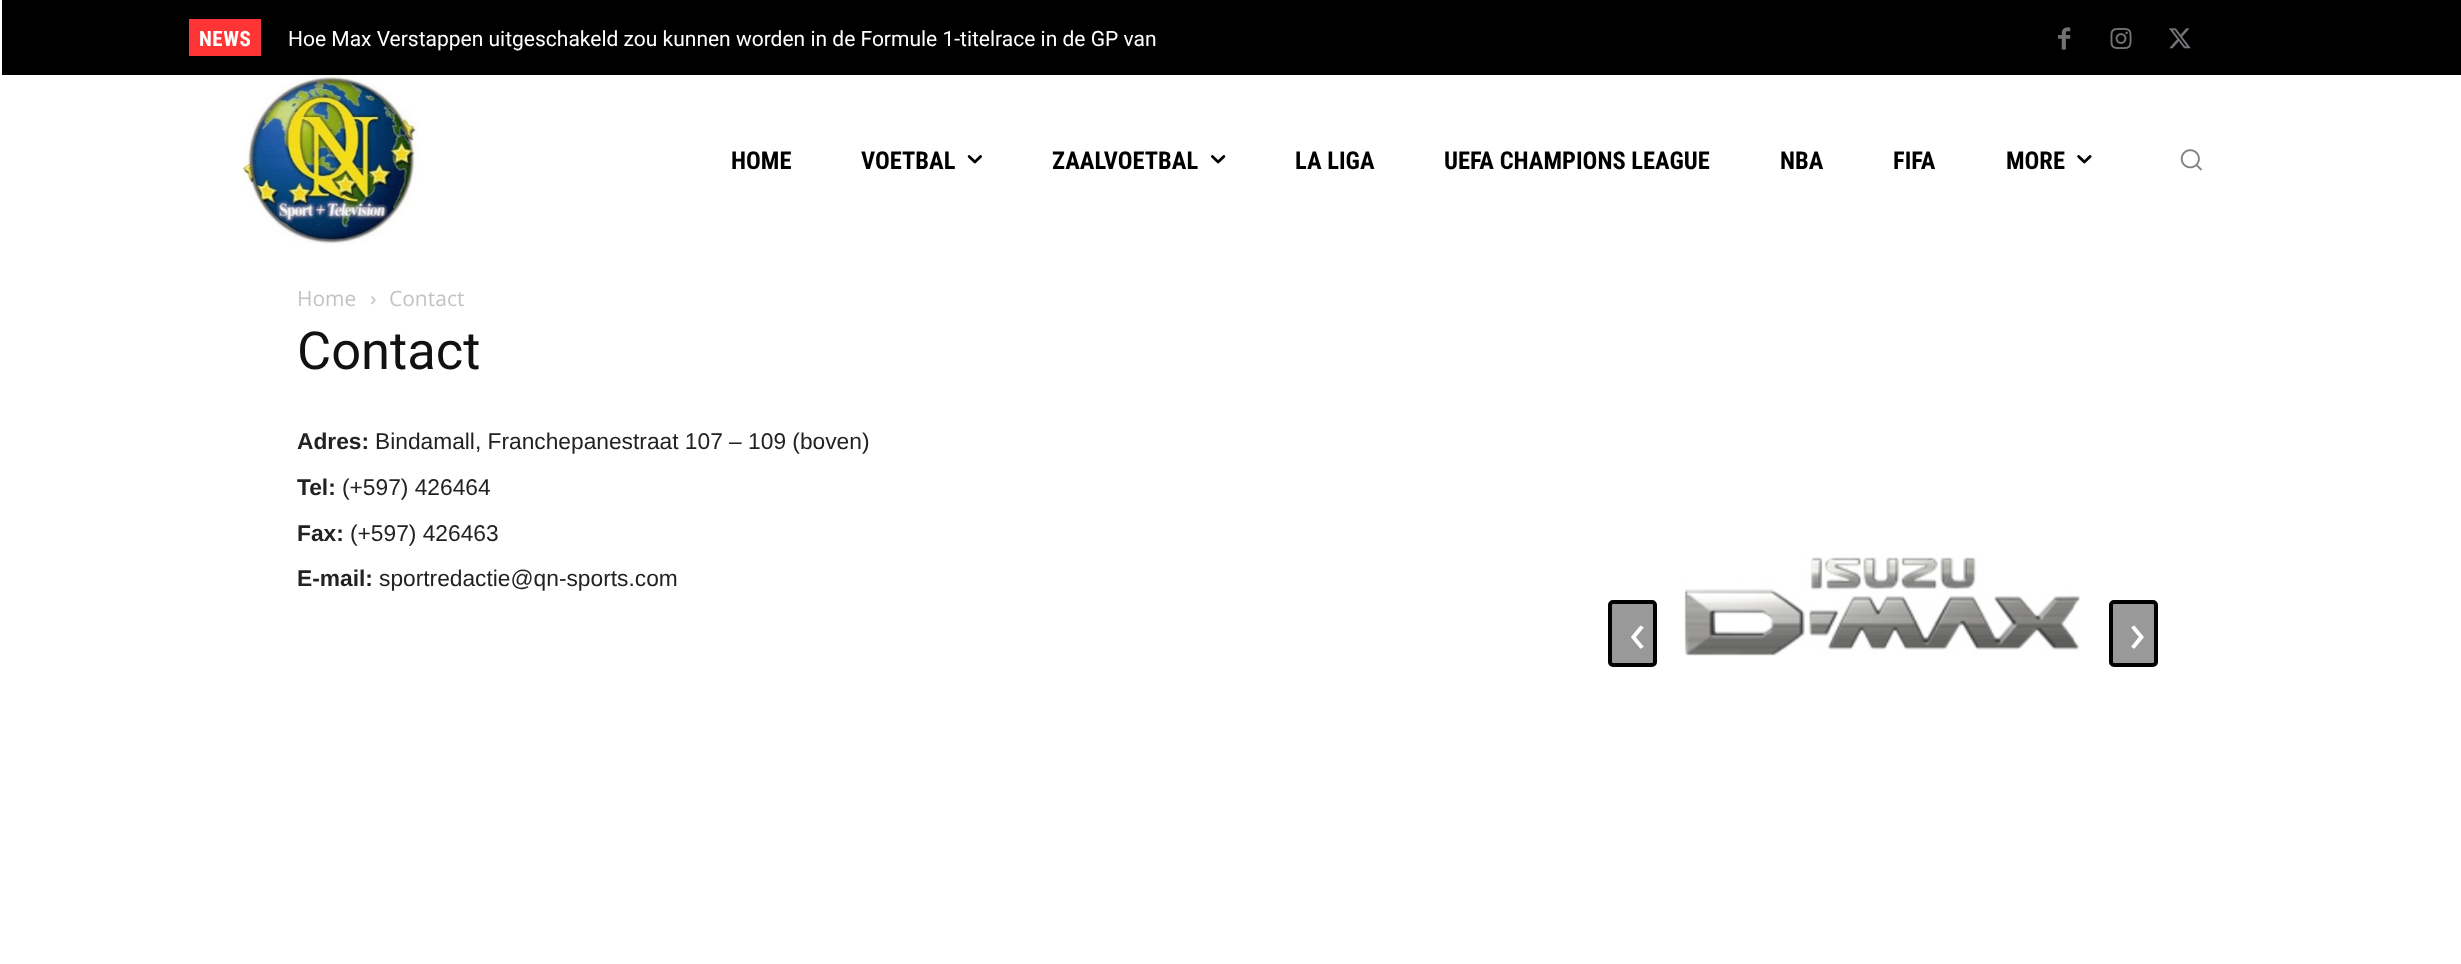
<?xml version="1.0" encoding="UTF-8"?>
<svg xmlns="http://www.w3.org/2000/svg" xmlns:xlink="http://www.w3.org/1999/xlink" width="2461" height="964">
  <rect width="100%" height="100%" fill="#ffffff" />
  <rect x="2" width="2459" height="75" fill="#000000" />
  <rect x="189" y="19" width="72" height="37" fill="#ff3535" />
  <image x="2058" y="27" width="13" height="23" xlink:href="image1.png" />
  <image x="2110" y="28" width="22" height="21" xlink:href="image2.png" />
  <image x="2169" y="28" width="22" height="21" xlink:href="image3.png" />
  <image x="242" y="75" width="177" height="169" xlink:href="image4.png" />
  <image x="967" y="155" width="15" height="9" xlink:href="image5.png" />
  <image x="1211" y="155" width="15" height="9" xlink:href="image6.png" />
  <image x="2077" y="155" width="15" height="9" xlink:href="image7.png" />
  <image x="2180" y="149" width="23" height="22" xlink:href="image8.png" />
  <image x="371" y="296" width="5" height="9" xlink:href="image9.png" />
  <image x="1684" y="557" width="396" height="99" xlink:href="image10.png" />
  <rect x="1610" y="602" width="45" height="63" rx="3" fill="#999999" stroke="#000000" stroke-width="4" />
  <rect x="2111" y="602" width="45" height="63" rx="3" fill="#999999" stroke="#000000" stroke-width="4" />
  <text x="199" y="46" style="font-family: Roboto Condensed; font-size: 21px; font-weight: bold; letter-spacing: 0.5px; fill: #ffffff">NEWS</text>
  <text x="288" y="46" style="font-family: Roboto; font-size: 21px; fill: #ffffff">Hoe Max Verstappen uitgeschakeld zou kunnen worden in de Formule 1-titelrace in de GP van</text>
  <text x="731" y="169" style="font-family: Roboto Condensed; font-size: 24.5px; font-weight: bold; fill: #000000">HOME</text>
  <text x="861" y="169" style="font-family: Roboto Condensed; font-size: 24.5px; font-weight: bold; fill: #000000">VOETBAL</text>
  <text x="1052" y="169" style="font-family: Roboto Condensed; font-size: 24.5px; font-weight: bold; fill: #000000">ZAALVOETBAL</text>
  <text x="1295" y="169" style="font-family: Roboto Condensed; font-size: 24.5px; font-weight: bold; fill: #000000">LA LIGA</text>
  <text x="1444" y="169" style="font-family: Roboto Condensed; font-size: 24.5px; font-weight: bold; fill: #000000">UEFA CHAMPIONS LEAGUE</text>
  <text x="1780" y="169" style="font-family: Roboto Condensed; font-size: 24.5px; font-weight: bold; fill: #000000">NBA</text>
  <text x="1893" y="169" style="font-family: Roboto Condensed; font-size: 24.5px; font-weight: bold; fill: #000000">FIFA</text>
  <text x="2006" y="169" style="font-family: Roboto Condensed; font-size: 24.5px; font-weight: bold; fill: #000000">MORE</text>
  <text x="297" y="306" style="font-family: Open Sans; font-size: 21px; fill: #c3c3c3">Home</text>
  <text x="389" y="306" style="font-family: Open Sans; font-size: 21px; fill: #c3c3c3">Contact</text>
  <text x="297" y="369" style="font-family: Roboto; font-size: 52.5px; fill: #111111">Contact</text>
  <text x="297" y="449" style="font-family: Liberation Sans; font-size: 22.75px; font-weight: bold; fill: #222222">Adres:</text>
  <text x="375" y="449" style="font-family: Liberation Sans; font-size: 22.75px; fill: #222222">Bindamall, Franchepanestraat 107 – 109 (boven)</text>
  <text x="297" y="495" style="font-family: Liberation Sans; font-size: 22.75px; font-weight: bold; fill: #222222">Tel:</text>
  <text x="342" y="495" style="font-family: Liberation Sans; font-size: 22.75px; fill: #222222">(+597) 426464</text>
  <text x="297" y="541" style="font-family: Liberation Sans; font-size: 22.75px; font-weight: bold; fill: #222222">Fax:</text>
  <text x="350" y="541" style="font-family: Liberation Sans; font-size: 22.75px; fill: #222222">(+597) 426463</text>
  <text x="297" y="586" style="font-family: Liberation Sans; font-size: 22.75px; font-weight: bold; fill: #222222">E-mail:</text>
  <text x="379" y="586" style="font-family: Liberation Sans; font-size: 22.75px; fill: #222222">sportredactie@qn-sports.com</text>
  <text x="1629" y="652" style="font-family: Open Sans; font-size: 56px; fill: #ffffff">‹</text>
  <text x="2129" y="652" style="font-family: Open Sans; font-size: 56px; fill: #ffffff">›</text>
</svg>
